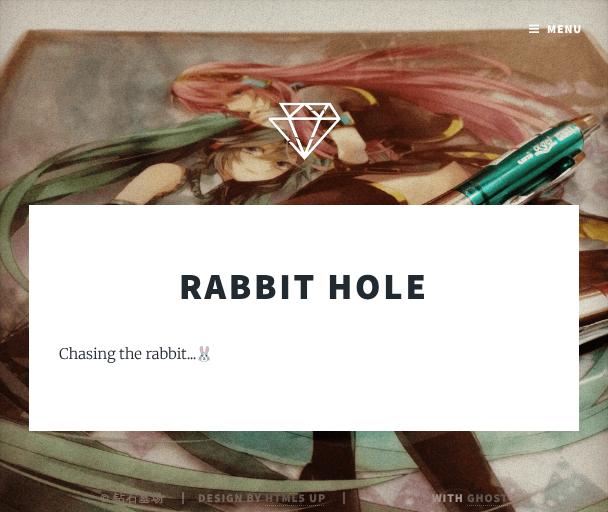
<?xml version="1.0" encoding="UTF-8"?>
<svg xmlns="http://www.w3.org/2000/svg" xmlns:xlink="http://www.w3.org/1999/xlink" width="608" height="512">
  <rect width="100%" height="100%" fill="#ffffff" />
  <image x="0" y="0" width="608" height="512" xlink:href="image1.png" />
  <image x="529" y="24" width="11" height="9" xlink:href="image2.png" />
  <image x="267" y="102" width="75" height="59" xlink:href="image3.png" />
  <rect x="29" y="205" width="550" height="226" fill="#ffffff" />
  <rect x="182" y="492" width="2" height="12" fill="#ffffff" fill-opacity="0.25" />
  <path d="M 265 505.5 h 60" fill="none" stroke="#ffffff" stroke-opacity="0.25" stroke-dasharray="1 1" />
  <rect x="343" y="492" width="2" height="12" fill="#ffffff" fill-opacity="0.25" />
  <path d="M 467 505.5 h 41" fill="none" stroke="#ffffff" stroke-opacity="0.25" stroke-dasharray="1 1" />
  <text x="547" y="33" style="font-family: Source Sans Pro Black; font-size: 11.75px; font-weight: 900; letter-spacing: 0.9px; fill: #ffffff">MENU</text>
  <text x="179" y="299" style="font-family: Source Sans Pro Black; font-size: 36.75px; font-weight: 900; letter-spacing: 2.75px; fill: #212931">RABBIT HOLE</text>
  <text x="59" y="359" style="font-family: Merriweather; font-size: 14.75px; font-weight: 300; fill: #212931">Chasing the rabbit...</text>
  <text x="195" y="359" style="font-family: Noto Color Emoji; font-size: 14.75px; fill: #212931">🐰</text>
  <text x="100" y="502" style="font-family: Source Sans Pro Black; font-size: 11.75px; font-weight: 900; letter-spacing: 0.9px; fill: #837869">©</text>
  <text x="113" y="502" style="font-family: WenQuanYi Zen Hei; font-size: 11.75px; font-weight: bold; letter-spacing: 0.9px; fill: #807164">钻石墓场</text>
  <text x="198" y="502" style="font-family: Source Sans Pro Black; font-size: 11.75px; font-weight: 900; letter-spacing: 0.9px; fill: #74655b">DESIGN BY</text>
  <text x="265" y="502" style="font-family: Source Sans Pro Black; font-size: 11.75px; font-weight: 900; letter-spacing: 0.9px; fill: #655750">HTML5 UP</text>
  <text x="432" y="502" style="font-family: Source Sans Pro Black; font-size: 11.75px; font-weight: 900; letter-spacing: 0.9px; fill: #a29089">WITH</text>
  <text x="467" y="502" style="font-family: Source Sans Pro Black; font-size: 11.75px; font-weight: 900; letter-spacing: 0.9px; fill: #655750">GHOST</text>
</svg>
